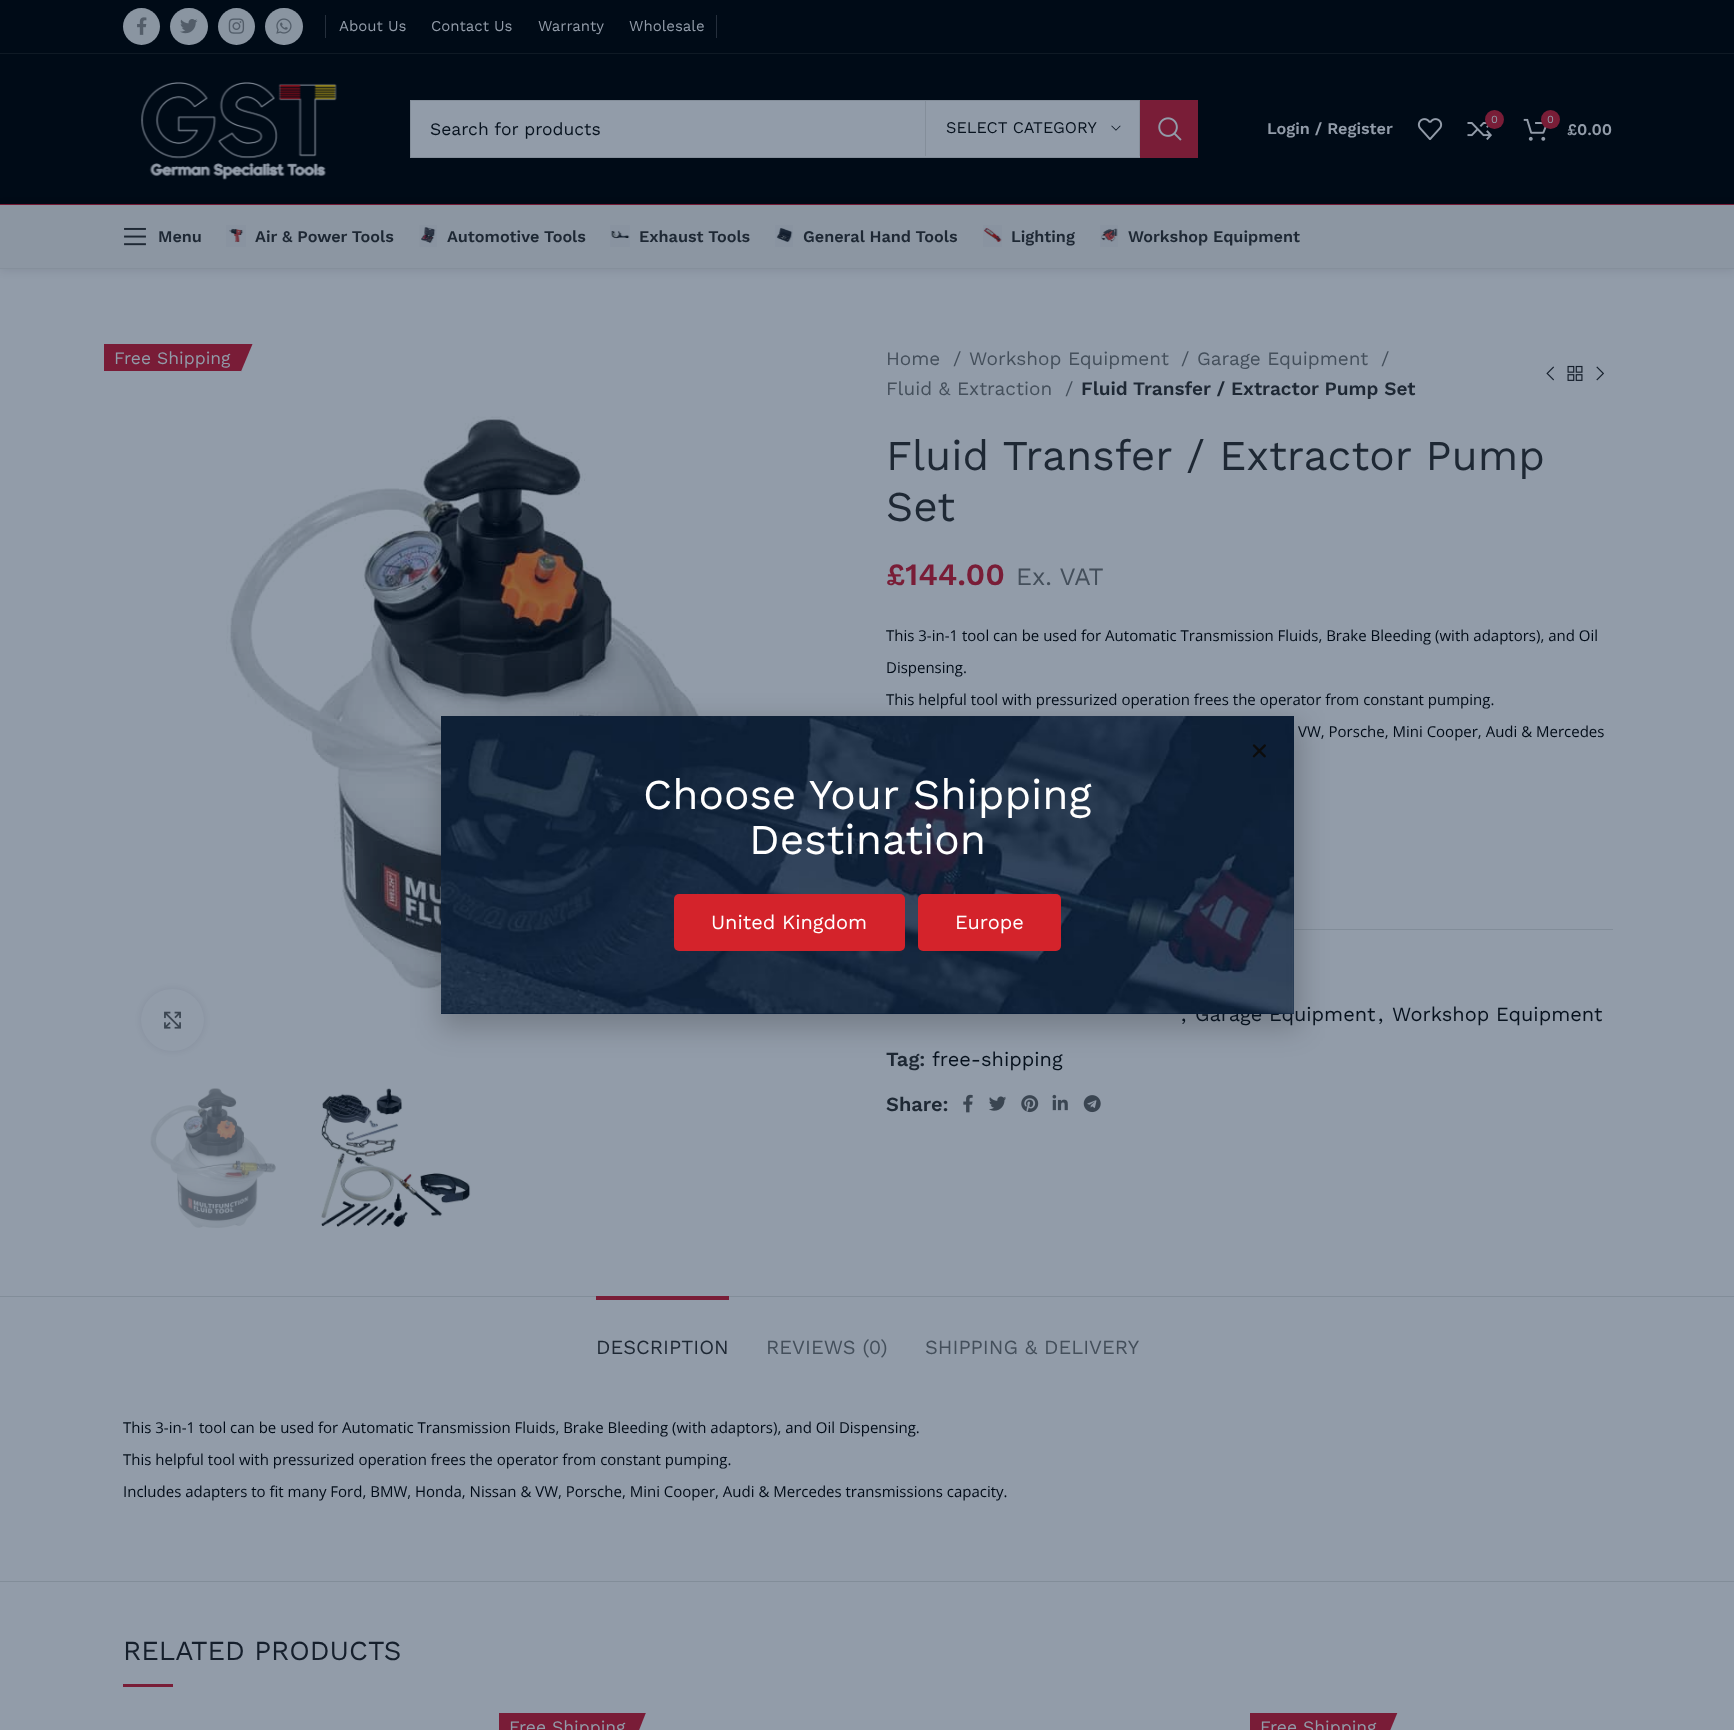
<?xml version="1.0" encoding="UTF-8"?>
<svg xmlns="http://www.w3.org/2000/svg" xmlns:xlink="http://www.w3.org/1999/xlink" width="1734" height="1730">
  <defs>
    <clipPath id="clip1"><rect x="635" y="1713" width="13" height="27" /></clipPath>
    <clipPath id="clip2"><rect x="1386" y="1713" width="13" height="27" /></clipPath>
  </defs>
  <rect width="100%" height="100%" fill="#929ca9" />
  <rect width="1734" height="53" fill="#000b17" />
  <rect y="53" width="1734" height="1" fill="#0f1a25" />
  <circle cx="141.5" cy="26.5" r="18.5" fill="#8a95a1" />
  <image x="137" y="17" width="10" height="18" xlink:href="image1.png" />
  <rect x="170" y="8" width="38" height="37" rx="18.5" fill="#8a95a1" />
  <image x="180" y="19" width="18" height="15" xlink:href="image2.png" />
  <circle cx="236.5" cy="26.5" r="18.5" fill="#8a95a1" />
  <image x="228" y="18" width="17" height="16" xlink:href="image3.png" />
  <rect x="265" y="8" width="38" height="37" rx="18.5" fill="#8a95a1" />
  <image x="276" y="18" width="16" height="16" xlink:href="image4.png" />
  <rect x="325" y="15" width="1" height="23" fill="#252f3c" />
  <rect x="716" y="15" width="1" height="23" fill="#252f3c" />
  <rect y="54" width="1734" height="150" fill="#000b17" />
  <rect y="204" width="1734" height="1" fill="#791d37" />
  <image x="141" y="82" width="196" height="98" xlink:href="image5.png" />
  <rect x="411" y="101" width="729" height="56" fill="#929ca9" />
  <rect x="410.5" y="100.5" width="787" height="57" fill="none" stroke="#848e9a" />
  <rect x="1139" y="101" width="1" height="55" fill="#848e9a" />
  <rect x="925" y="101" width="1" height="55" fill="#848e9a" />
  <image x="1111" y="125" width="10" height="6" xlink:href="image6.png" />
  <rect x="1140" y="100" width="58" height="58" fill="#791d37" />
  <image x="1158" y="117" width="24" height="24" xlink:href="image7.png" />
  <image x="1417" y="118" width="26" height="22" xlink:href="image8.png" />
  <image x="1467" y="122" width="25" height="18" xlink:href="image9.png" />
  <circle cx="1494.5" cy="119.5" r="9.5" fill="#791d37" />
  <image x="1523" y="118" width="24" height="23" xlink:href="image10.png" />
  <circle cx="1550.5" cy="119.5" r="9.5" fill="#791d37" />
  <rect y="206" width="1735" height="64" fill="#000b17" fill-opacity="0.1" filter="blur(5px)" />
  <rect y="205" width="1734" height="63" fill="#8c96a2" />
  <rect y="268" width="1734" height="1" fill="#858f9b" />
  <image x="124" y="227" width="22" height="19" xlink:href="image11.png" />
  <image x="226" y="225" width="20" height="22" xlink:href="image12.png" />
  <image x="419" y="225" width="18" height="22" xlink:href="image13.png" />
  <image x="610" y="225" width="20" height="22" xlink:href="image14.png" />
  <image x="775" y="225" width="18" height="22" xlink:href="image15.png" />
  <image x="983" y="225" width="19" height="22" xlink:href="image16.png" />
  <image x="1100" y="225" width="18" height="22" xlink:href="image17.png" />
  <rect x="104" y="344" width="137" height="27" fill="#791c37" />
  <path d="M 241 344 h 11.5 l -11.5 27.5 z" fill="#791c37" />
  <image x="226" y="416" width="519" height="577" xlink:href="image18.png" />
  <rect x="141" y="989" width="63" height="62" rx="31" fill="#000b17" fill-opacity="0.08" filter="blur(3px)" />
  <rect x="141" y="989" width="63" height="62" rx="31" fill="#929ca9" />
  <image x="164" y="1011" width="17" height="18" xlink:href="image19.png" />
  <image x="150" y="1088" width="126" height="140" xlink:href="image20.png" />
  <image x="321" y="1088" width="150" height="139" xlink:href="image21.png" />
  <image x="1546" y="366" width="8" height="15" xlink:href="image22.png" />
  <image x="1567" y="365" width="16" height="16" xlink:href="image23.png" />
  <image x="1596" y="366" width="8" height="15" xlink:href="image24.png" />
  <rect x="1294" y="929" width="319" height="1" fill="#828d99" />
  <image x="963" y="1094" width="10" height="19" xlink:href="image25.png" />
  <image x="989" y="1096" width="17" height="15" xlink:href="image26.png" />
  <image x="1021" y="1095" width="18" height="18" xlink:href="image27.png" />
  <image x="1052" y="1094" width="16" height="17" xlink:href="image28.png" />
  <image x="1083" y="1095" width="18" height="18" xlink:href="image29.png" />
  <rect y="1296" width="1734" height="1" fill="#828d99" />
  <rect y="1581" width="1734" height="1" fill="#828d99" />
  <rect x="596" y="1296" width="133" height="4" fill="#791d37" />
  <rect x="123" y="1684" width="50" height="3" fill="#791d37" />
  <rect x="499" y="1713" width="136" height="17" fill="#791c37" />
  <g clip-path="url(#clip1)">
    <path d="M 635 1712.5 h 11 l -11 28 z" fill="#791c37" />
  </g>
  <rect x="1250" y="1713" width="136" height="17" fill="#791c37" />
  <g clip-path="url(#clip2)">
    <path d="M 1386 1712.5 h 11.5 l -11.5 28 z" fill="#791c37" />
  </g>
  <rect x="440" y="723" width="860" height="305" fill="#000000" fill-opacity="0.2" filter="blur(14.5px)" />
  <text x="339" y="31" style="font-family: Work Sans; font-size: 15px; fill: #929ca9">About Us</text>
  <text x="431" y="31" style="font-family: Work Sans; font-size: 15px; fill: #929ca9">Contact Us</text>
  <text x="538" y="31" style="font-family: Work Sans; font-size: 15px; fill: #929ca9">Warranty</text>
  <text x="629" y="31" style="font-family: Work Sans; font-size: 15px; fill: #929ca9">Wholesale</text>
  <text x="430" y="135" style="font-family: Work Sans; font-size: 17.5px; fill: #07121e">Search for products</text>
  <text x="946" y="133" style="font-family: Work Sans; font-size: 16.25px; fill: #07121e">SELECT CATEGORY</text>
  <text x="1267" y="134" style="font-family: Work Sans; font-size: 16.25px; font-weight: 600; fill: #929ca9">Login / Register</text>
  <text x="1491" y="123" style="font-family: Work Sans; font-size: 11px; fill: #929ca9">0</text>
  <text x="1547" y="123" style="font-family: Work Sans; font-size: 11px; fill: #929ca9">0</text>
  <text x="1567" y="135" style="font-family: Work Sans; font-size: 16.25px; font-weight: 600; fill: #929ca9">£0.00</text>
  <text x="158" y="242" style="font-family: Work Sans; font-size: 16.25px; font-weight: 600; fill: #1e2834">Menu</text>
  <text x="255" y="242" style="font-family: Work Sans; font-size: 16.25px; font-weight: 600; fill: #1e2834">Air &amp; Power Tools</text>
  <text x="447" y="242" style="font-family: Work Sans; font-size: 16.25px; font-weight: 600; fill: #1e2834">Automotive Tools</text>
  <text x="639" y="242" style="font-family: Work Sans; font-size: 16.25px; font-weight: 600; fill: #1e2834">Exhaust Tools</text>
  <text x="803" y="242" style="font-family: Work Sans; font-size: 16.25px; font-weight: 600; fill: #1e2834">General Hand Tools</text>
  <text x="1011" y="242" style="font-family: Work Sans; font-size: 16.25px; font-weight: 600; fill: #1e2834">Lighting</text>
  <text x="1128" y="242" style="font-family: Work Sans; font-size: 16.25px; font-weight: 600; fill: #1e2834">Workshop Equipment</text>
  <text x="114" y="364" style="font-family: Work Sans; font-size: 17.5px; fill: #929ca9">Free Shipping</text>
  <text x="886" y="365" style="font-family: Work Sans; font-size: 19px; fill: #444f5b">Home</text>
  <text x="953" y="365" style="font-family: Work Sans; font-size: 19px; fill: #444f5b">/</text>
  <text x="969" y="365" style="font-family: Work Sans; font-size: 19px; fill: #444f5b">Workshop Equipment</text>
  <text x="1181" y="365" style="font-family: Work Sans; font-size: 19px; fill: #444f5b">/</text>
  <text x="1197" y="365" style="font-family: Work Sans; font-size: 19px; fill: #444f5b">Garage Equipment</text>
  <text x="1381" y="365" style="font-family: Work Sans; font-size: 19px; fill: #444f5b">/</text>
  <text x="886" y="395" style="font-family: Work Sans; font-size: 19px; fill: #444f5b">Fluid &amp; Extraction</text>
  <text x="1065" y="395" style="font-family: Work Sans; font-size: 19px; fill: #444f5b">/</text>
  <text x="1081" y="395" style="font-family: Work Sans; font-size: 19px; font-weight: 600; fill: #1e2834">Fluid Transfer / Extractor Pump Set</text>
  <text x="886" y="470" style="font-family: Work Sans; font-size: 42.5px; fill: #1e2834">Fluid Transfer / Extractor Pump</text>
  <text x="886" y="521" style="font-family: Work Sans; font-size: 42.5px; fill: #1e2834">Set</text>
  <text x="886" y="585" style="font-family: Work Sans; font-size: 31px; font-weight: 600; fill: #791d37">£144.00</text>
  <text x="1016" y="585" style="font-family: Work Sans; font-size: 25px; fill: #444f5b">Ex. VAT</text>
  <text x="886" y="641" style="font-family: Open Sans; font-size: 15px; fill: #000b17">This 3-in-1 tool can be used for Automatic Transmission Fluids, Brake Bleeding (with adaptors), and Oil</text>
  <text x="886" y="673" style="font-family: Open Sans; font-size: 15px; fill: #000b17">Dispensing.</text>
  <text x="886" y="705" style="font-family: Open Sans; font-size: 15px; fill: #000b17">This helpful tool with pressurized operation frees the operator from constant pumping.</text>
  <text x="1298" y="737" style="font-family: Open Sans; font-size: 15px; fill: #000b17">VW, Porsche, Mini Cooper, Audi &amp; Mercedes</text>
  <text x="1181" y="1021" style="font-family: Work Sans; font-size: 20px; fill: #07121e">,</text>
  <text x="1195" y="1021" style="font-family: Work Sans; font-size: 20px; fill: #07121e">Garage Equipment</text>
  <text x="1378" y="1021" style="font-family: Work Sans; font-size: 20px; fill: #07121e">,</text>
  <text x="1392" y="1021" style="font-family: Work Sans; font-size: 20px; fill: #07121e">Workshop Equipment</text>
  <text x="886" y="1066" style="font-family: Work Sans; font-size: 20px; font-weight: 600; fill: #1e2834">Tag:</text>
  <text x="932" y="1066" style="font-family: Work Sans; font-size: 20px; fill: #07121e">free-shipping</text>
  <text x="886" y="1111" style="font-family: Work Sans; font-size: 20px; font-weight: 600; fill: #1e2834">Share:</text>
  <text x="596" y="1354" style="font-family: Work Sans; font-size: 20px; fill: #1e2834">DESCRIPTION</text>
  <text x="766" y="1354" style="font-family: Work Sans; font-size: 20px; fill: #444f5b">REVIEWS (0)</text>
  <text x="925" y="1354" style="font-family: Work Sans; font-size: 20px; fill: #444f5b">SHIPPING &amp; DELIVERY</text>
  <text x="123" y="1433" style="font-family: Open Sans; font-size: 15px; fill: #000b17">This 3-in-1 tool can be used for Automatic Transmission Fluids, Brake Bleeding (with adaptors), and Oil Dispensing.</text>
  <text x="123" y="1465" style="font-family: Open Sans; font-size: 15px; fill: #000b17">This helpful tool with pressurized operation frees the operator from constant pumping.</text>
  <text x="123" y="1497" style="font-family: Open Sans; font-size: 15px; fill: #000b17">Includes adapters to fit many Ford, BMW, Honda, Nissan &amp; VW, Porsche, Mini Cooper, Audi &amp; Mercedes transmissions capacity.</text>
  <text x="123" y="1660" style="font-family: Work Sans; font-size: 27.5px; fill: #151f2c">RELATED PRODUCTS</text>
  <text x="509" y="1733" style="font-family: Work Sans; font-size: 17.5px; fill: #929ca9">Free Shipping</text>
  <text x="1260" y="1733" style="font-family: Work Sans; font-size: 17.5px; fill: #929ca9">Free Shipping</text>
  <rect x="441" y="716" width="853" height="298" fill="#011936" />
  <image x="441" y="716" width="853" height="298" xlink:href="image30.png" />
  <image x="1252" y="744" width="14" height="14" xlink:href="image31.png" />
  <text x="643" y="809" style="font-family: Work Sans; font-size: 42.5px; fill: #ffffff">Choose Your Shipping</text>
  <text x="749" y="854" style="font-family: Work Sans; font-size: 42.5px; fill: #ffffff">Destination</text>
  <rect x="674" y="894" width="231" height="57" rx="5" fill="#d4232b" />
  <text x="711" y="929" style="font-family: Work Sans; font-size: 20px; fill: #ffffff">United Kingdom</text>
  <rect x="918" y="894" width="143" height="57" rx="5" fill="#d4232b" />
  <text x="955" y="929" style="font-family: Work Sans; font-size: 20px; fill: #ffffff">Europe</text>
</svg>
